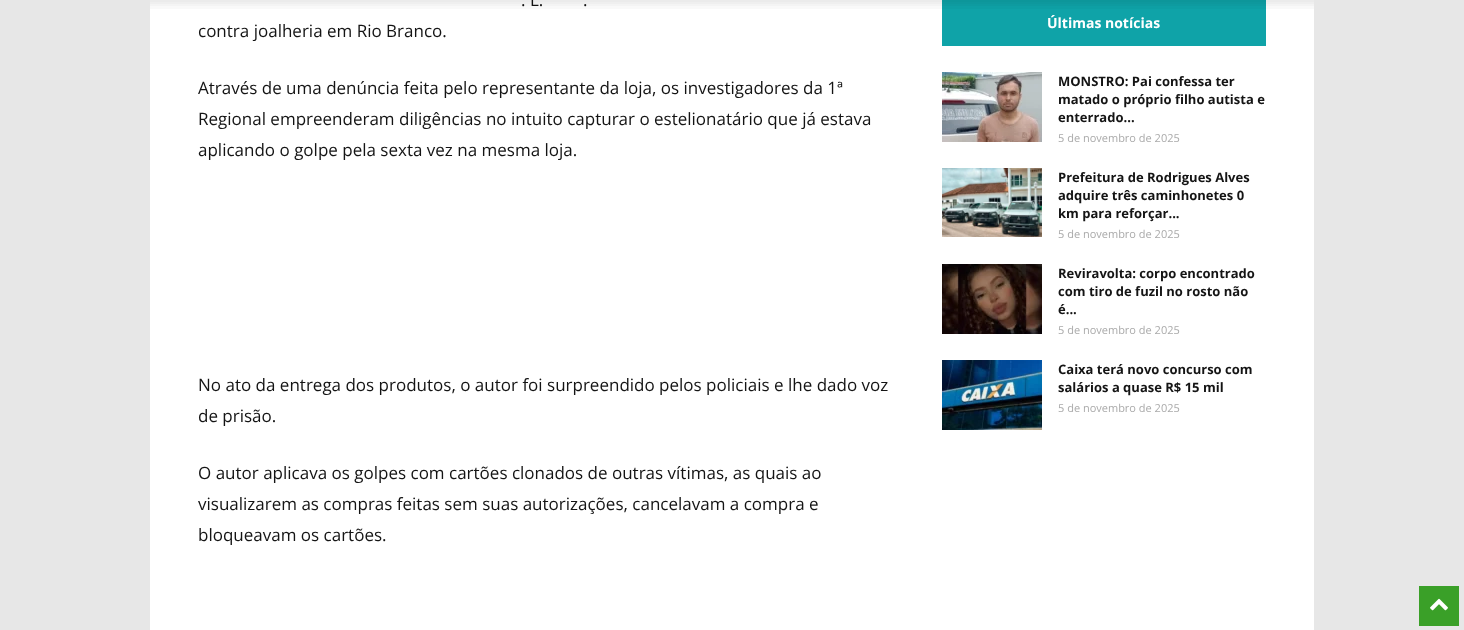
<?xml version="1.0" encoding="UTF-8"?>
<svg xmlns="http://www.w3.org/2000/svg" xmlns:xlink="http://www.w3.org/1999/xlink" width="1464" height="630">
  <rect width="100%" height="100%" fill="#e7e7e7" />
  <rect x="150" width="1164" height="630" fill="#ffffff" />
  <rect x="942" width="324" height="46" fill="#0fa3a8" />
  <image x="942" y="72" width="100" height="70" xlink:href="image2.png" />
  <image x="942" y="168" width="100" height="69" xlink:href="image3.png" />
  <image x="942" y="264" width="100" height="70" xlink:href="image4.png" />
  <image x="942" y="360" width="100" height="70" xlink:href="image5.png" />
  <rect x="1419" y="586" width="40" height="40" fill="#3aa028" />
  <image x="1430" y="598" width="18" height="13" xlink:href="image6.png" />
  <text x="521" y="6" style="font-family: Open Sans; font-size: 17px; fill: #141414">. L.</text>
  <text x="583" y="6" style="font-family: Open Sans; font-size: 17px; fill: #141414">.</text>
  <image x="150" y="0" width="1164" height="9" xlink:href="image1.png" />
  <text x="198" y="37" style="font-family: Open Sans; font-size: 17px; fill: #141414">contra joalheria em Rio Branco.</text>
  <text x="198" y="94" style="font-family: Open Sans; font-size: 17px; fill: #141414">Através de uma denúncia feita pelo representante da loja, os investigadores da 1ª</text>
  <text x="198" y="125" style="font-family: Open Sans; font-size: 17px; fill: #141414">Regional empreenderam diligências no intuito capturar o estelionatário que já estava</text>
  <text x="198" y="156" style="font-family: Open Sans; font-size: 17px; fill: #141414">aplicando o golpe pela sexta vez na mesma loja.</text>
  <text x="198" y="391" style="font-family: Open Sans; font-size: 17px; fill: #141414">No ato da entrega dos produtos, o autor foi surpreendido pelos policiais e lhe dado voz</text>
  <text x="198" y="422" style="font-family: Open Sans; font-size: 17px; fill: #141414">de prisão.</text>
  <text x="198" y="479" style="font-family: Open Sans; font-size: 17px; fill: #141414">O autor aplicava os golpes com cartões clonados de outras vítimas, as quais ao</text>
  <text x="198" y="510" style="font-family: Open Sans; font-size: 17px; fill: #141414">visualizarem as compras feitas sem suas autorizações, cancelavam a compra e</text>
  <text x="198" y="541" style="font-family: Open Sans; font-size: 17px; fill: #141414">bloqueavam os cartões.</text>
  <text x="1047" y="28" style="font-family: Open Sans; font-size: 14px; font-weight: bold; fill: #ffffff">Últimas notícias</text>
  <text x="1058" y="86" style="font-family: Open Sans; font-size: 13px; font-weight: bold; fill: #141414">MONSTRO: Pai confessa ter</text>
  <text x="1058" y="104" style="font-family: Open Sans; font-size: 13px; font-weight: bold; fill: #141414">matado o próprio filho autista e</text>
  <text x="1058" y="122" style="font-family: Open Sans; font-size: 13px; font-weight: bold; fill: #141414">enterrado...</text>
  <text x="1058" y="142" style="font-family: Open Sans; font-size: 11px; fill: #aaaaaa">5 de novembro de 2025</text>
  <text x="1058" y="182" style="font-family: Open Sans; font-size: 13px; font-weight: bold; fill: #141414">Prefeitura de Rodrigues Alves</text>
  <text x="1058" y="200" style="font-family: Open Sans; font-size: 13px; font-weight: bold; fill: #141414">adquire três caminhonetes 0</text>
  <text x="1058" y="218" style="font-family: Open Sans; font-size: 13px; font-weight: bold; fill: #141414">km para reforçar...</text>
  <text x="1058" y="238" style="font-family: Open Sans; font-size: 11px; fill: #aaaaaa">5 de novembro de 2025</text>
  <text x="1058" y="278" style="font-family: Open Sans; font-size: 13px; font-weight: bold; fill: #141414">Reviravolta: corpo encontrado</text>
  <text x="1058" y="296" style="font-family: Open Sans; font-size: 13px; font-weight: bold; fill: #141414">com tiro de fuzil no rosto não</text>
  <text x="1058" y="314" style="font-family: Open Sans; font-size: 13px; font-weight: bold; fill: #141414">é...</text>
  <text x="1058" y="334" style="font-family: Open Sans; font-size: 11px; fill: #aaaaaa">5 de novembro de 2025</text>
  <text x="1058" y="374" style="font-family: Open Sans; font-size: 13px; font-weight: bold; fill: #141414">Caixa terá novo concurso com</text>
  <text x="1058" y="392" style="font-family: Open Sans; font-size: 13px; font-weight: bold; fill: #141414">salários a quase R$ 15 mil</text>
  <text x="1058" y="412" style="font-family: Open Sans; font-size: 11px; fill: #aaaaaa">5 de novembro de 2025</text>
</svg>
